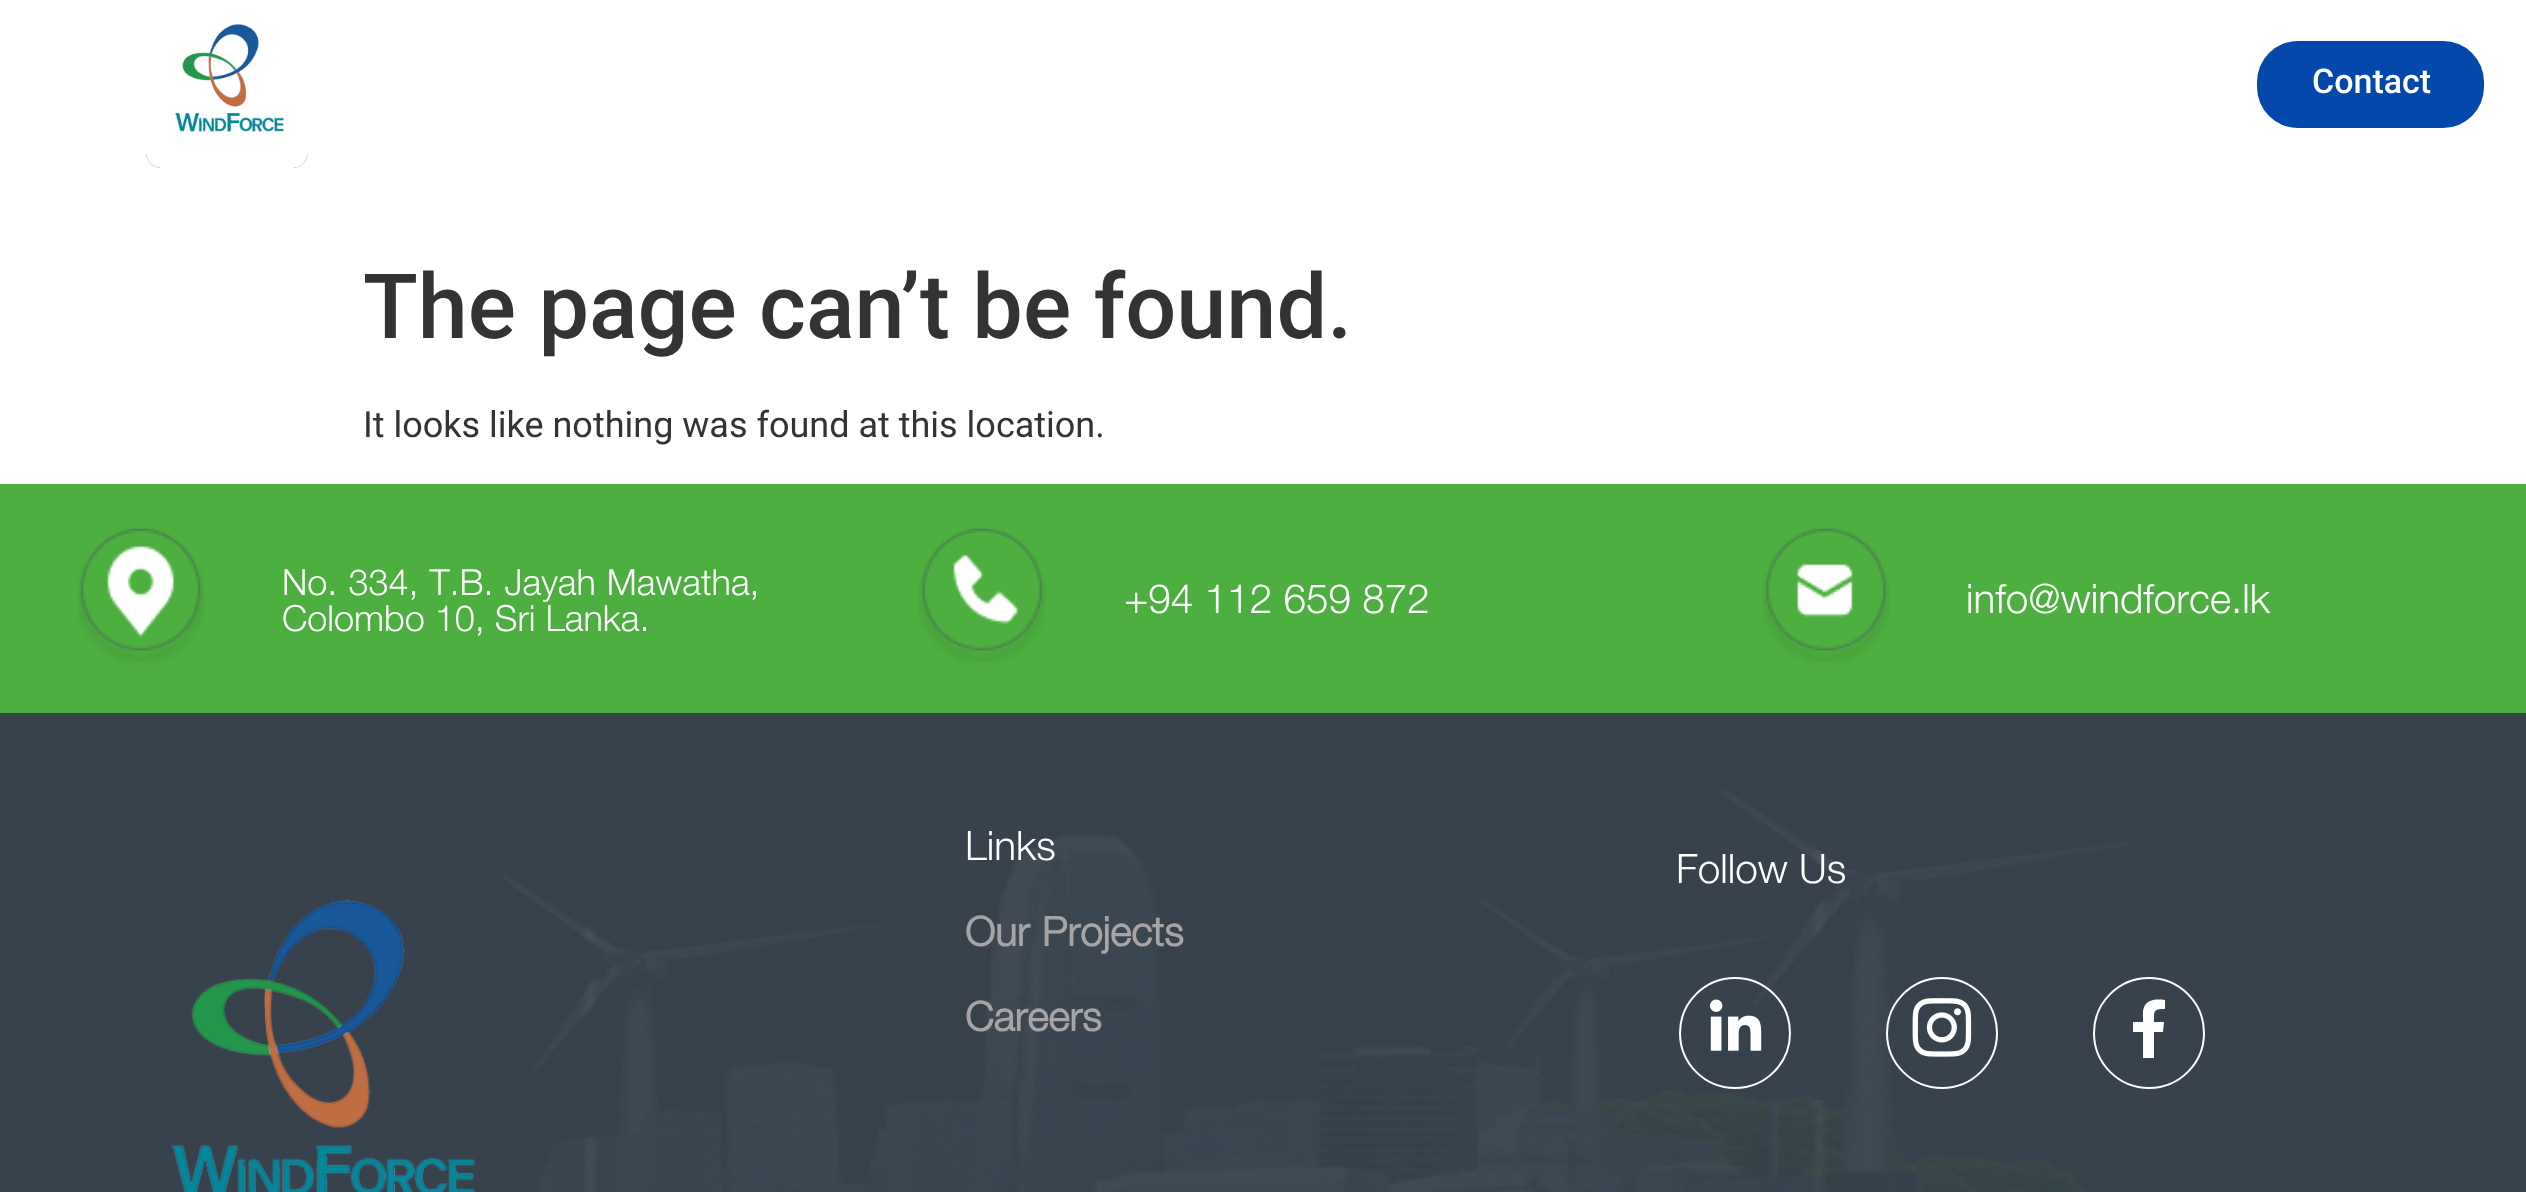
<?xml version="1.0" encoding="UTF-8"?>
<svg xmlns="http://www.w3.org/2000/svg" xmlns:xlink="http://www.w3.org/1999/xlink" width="2526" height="1192">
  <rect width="100%" height="100%" fill="#ffffff" />
  <image x="146" y="23" width="162" height="145" xlink:href="image1.png" />
  <rect x="2257" y="41" width="227" height="87" rx="41" fill="#0548ab" />
  <rect y="484" width="2526" height="229" fill="#4daf40" />
  <image x="77" y="528" width="128" height="135" xlink:href="image2.png" />
  <image x="918" y="528" width="129" height="135" xlink:href="image3.png" />
  <image x="1762" y="528" width="128" height="135" xlink:href="image4.png" />
  <rect y="713" width="2526" height="479" fill="#37424d" />
  <image x="502" y="789" width="1626" height="403" xlink:href="image5.png" />
  <circle cx="1735" cy="1033" r="55" fill="none" stroke="#ffffff" stroke-width="2" />
  <image x="1710" y="999" width="52" height="52" xlink:href="image6.png" />
  <circle cx="1942" cy="1033" r="55" fill="none" stroke="#ffffff" stroke-width="2" />
  <image x="1912" y="998" width="60" height="59" xlink:href="image7.png" />
  <circle cx="2149" cy="1033" r="55" fill="none" stroke="#ffffff" stroke-width="2" />
  <path d="M 2163 1032 h -9 v 26 h -11 v -26 h -10 v -10 h 10 v -11 c 2 -12 12 -12 22 -11 v 9 c -12 0 -11 2 -11 13 h 10 z" fill="#ffffff" />
  <image x="171" y="899" width="304" height="293" xlink:href="image8.png" />
  <text x="2312" y="93" style="font-family: Roboto; font-size: 34px; font-weight: 500; fill: #ffffff">Contact</text>
  <text x="363" y="338" style="font-family: Roboto; font-size: 90px; font-weight: 500; fill: #333333">The page can’t be found.</text>
  <text x="363" y="437" style="font-family: Roboto; font-size: 36px; fill: #333333">It looks like nothing was found at this location.</text>
  <text x="282" y="595" word-spacing="1" style="font-family: Helvetica Neue; font-size: 36px; font-weight: 300; fill: #ffffff">No. 334, T.B. Jayah Mawatha,</text>
  <text x="282" y="631" style="font-family: Helvetica Neue; font-size: 36px; font-weight: 300; fill: #ffffff">Colombo 10, Sri Lanka.</text>
  <text x="1124" y="613" style="font-family: Helvetica Neue; font-size: 40.5px; font-weight: 300; fill: #ffffff">+94 112 659 872</text>
  <text x="1966" y="613" style="font-family: Helvetica Neue; font-size: 40.5px; font-weight: 300; fill: #ffffff">info@windforce.lk</text>
  <text x="965" y="860" style="font-family: Helvetica Neue; font-size: 40.5px; font-weight: 300; fill: #ffffff">Links</text>
  <text x="965" y="946" word-spacing="1" style="font-family: Helvetica Neue; font-size: 40.5px; font-weight: bold; fill: #a6a4a4">Our Projects</text>
  <text x="965" y="1031" style="font-family: Helvetica Neue; font-size: 40.5px; font-weight: bold; fill: #a6a4a4">Careers</text>
  <text x="1676" y="883" style="font-family: Helvetica Neue; font-size: 40.5px; font-weight: 300; fill: #ffffff">Follow Us</text>
</svg>
